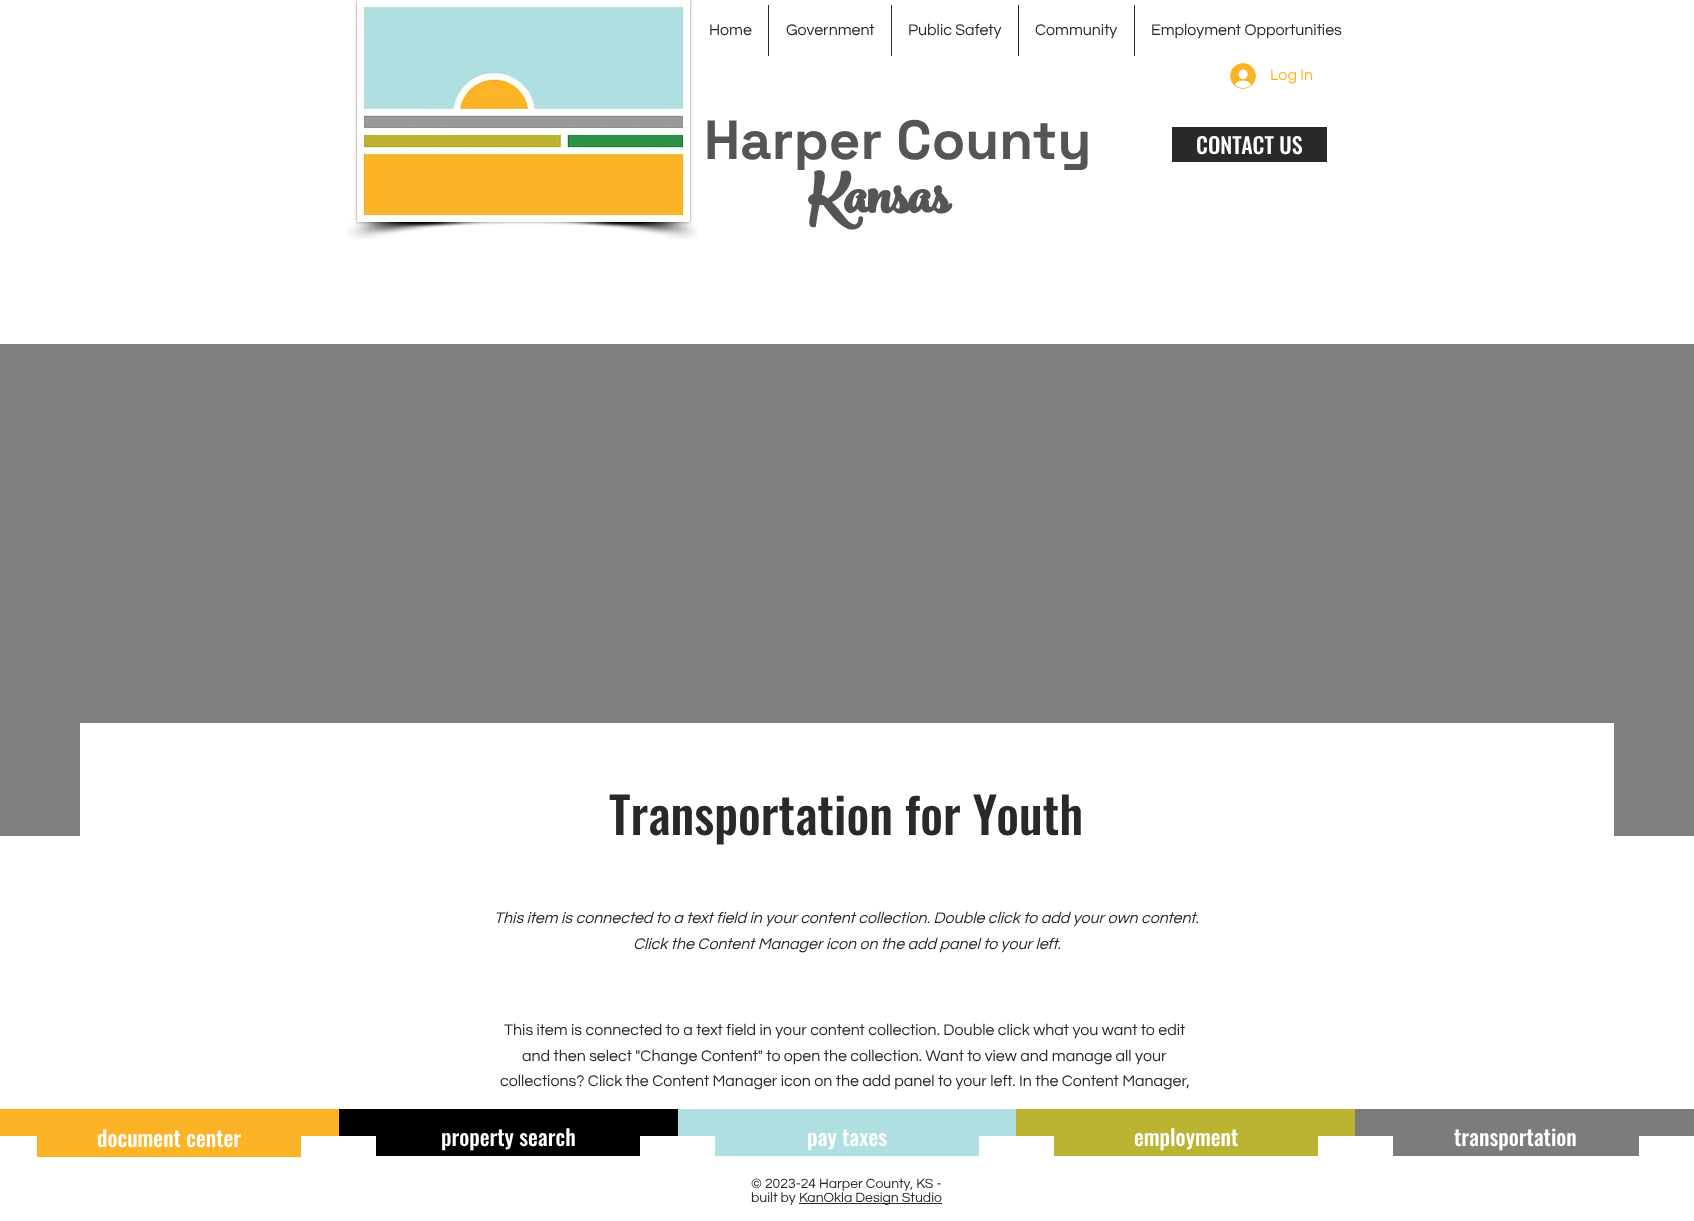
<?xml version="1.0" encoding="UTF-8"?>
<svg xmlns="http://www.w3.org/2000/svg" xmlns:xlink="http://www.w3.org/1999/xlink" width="1694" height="1221">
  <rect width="100%" height="100%" fill="#ffffff" />
  <rect x="357" width="333" height="222" fill="#000000" fill-opacity="0.5" filter="blur(1.5px)" />
  <image x="357" y="0" width="333" height="222" xlink:href="image1.png" />
  <image x="348" y="222" width="154" height="18" xlink:href="image2.png" />
  <image x="545" y="222" width="154" height="18" xlink:href="image3.png" />
  <rect x="768" y="5" width="1" height="51" fill="#292929" />
  <rect x="891" y="5" width="1" height="51" fill="#292929" />
  <rect x="1018" y="5" width="1" height="51" fill="#292929" />
  <rect x="1134" y="5" width="1" height="51" fill="#292929" />
  <image x="1230" y="63" width="26" height="26" xlink:href="image4.png" />
  <rect x="1172" y="127" width="155" height="35" fill="#292929" />
  <rect y="344" width="1694" height="492" fill="#7f7e81" />
  <rect x="80" y="723" width="1534" height="113" fill="#ffffff" />
  <rect y="1109" width="339" height="27" fill="#fcb426" />
  <rect x="37" y="1136" width="264" height="21" fill="#fcb426" />
  <rect x="339" y="1109" width="339" height="27" fill="#000000" />
  <rect x="376" y="1136" width="264" height="20" fill="#000000" />
  <rect x="678" y="1109" width="338" height="27" fill="#afdfe1" />
  <rect x="715" y="1136" width="264" height="20" fill="#afdfe1" />
  <rect x="1016" y="1109" width="339" height="27" fill="#bbb332" />
  <rect x="1054" y="1136" width="264" height="20" fill="#bbb332" />
  <rect x="1355" y="1109" width="339" height="27" fill="#7c7c7c" />
  <rect x="1393" y="1136" width="246" height="20" fill="#7c7c7c" />
  <rect x="799" y="1203" width="143" height="1" fill="#292929" />
  <text x="709" y="35" style="font-family: Questrial; font-size: 16px; fill: #292929">Home</text>
  <text x="786" y="35" style="font-family: Questrial; font-size: 16px; fill: #292929">Government</text>
  <text x="908" y="35" style="font-family: Questrial; font-size: 16px; fill: #292929">Public Safety</text>
  <text x="1035" y="35" style="font-family: Questrial; font-size: 16px; fill: #292929">Community</text>
  <text x="1151" y="35" style="font-family: Questrial; font-size: 16px; fill: #292929">Employment Opportunities</text>
  <text x="1270" y="80" style="font-family: Questrial; font-size: 16px; fill: #fcb426">Log In</text>
  <text x="704" y="159" style="font-family: Space Grotesk; font-size: 55px; font-weight: bold; fill: #555457">Harper County</text>
  <text x="808" y="213" style="font-family: 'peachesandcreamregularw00'; font-size: 82px; font-weight: bold; fill: #555457">Kansas</text>
  <text x="1196" y="154" style="font-family: Oswald; font-size: 22px; font-weight: 500; fill: #ffffff">CONTACT US</text>
  <text x="609" y="835" style="font-family: Oswald; font-size: 50px; font-weight: 500; fill: #292929">Transportation for Youth</text>
  <text x="494" y="923" style="font-family: Questrial; font-size: 16px; font-style: italic; fill: #292929">This item is connected to a text field in your content collection. Double click to add your own content.</text>
  <text x="633" y="949" style="font-family: Questrial; font-size: 16px; font-style: italic; fill: #292929">Click the Content Manager icon on the add panel to your left.</text>
  <text x="504" y="1035" style="font-family: Questrial; font-size: 16px; fill: #292929">This item is connected to a text field in your content collection. Double click what you want to edit</text>
  <text x="522" y="1061" style="font-family: Questrial; font-size: 16px; fill: #292929">and then select "Change Content" to open the collection. Want to view and manage all your</text>
  <text x="500" y="1086" style="font-family: Questrial; font-size: 16px; fill: #292929">collections? Click the Content Manager icon on the add panel to your left. In the Content Manager,</text>
  <text x="97" y="1147" style="font-family: Oswald; font-size: 22px; font-weight: 500; fill: #ffffff">document center</text>
  <text x="441" y="1146" style="font-family: Oswald; font-size: 22px; font-weight: 500; fill: #ffffff">property search</text>
  <text x="807" y="1146" style="font-family: Oswald; font-size: 22px; font-weight: 500; fill: #ffffff">pay taxes</text>
  <text x="1134" y="1146" style="font-family: Oswald; font-size: 22px; font-weight: 500; fill: #ffffff">employment</text>
  <text x="1454" y="1146" style="font-family: Oswald; font-size: 22px; font-weight: 500; fill: #ffffff">transportation</text>
  <text x="751" y="1188" style="font-family: Questrial; font-size: 14px; fill: #292929">© 2023-24 Harper County, KS -</text>
  <text x="751" y="1202" style="font-family: Questrial; font-size: 14px; fill: #292929">built by</text>
  <text x="799" y="1202" style="font-family: Questrial; font-size: 14px; fill: #292929">KanOkla Design Studio</text>
</svg>
